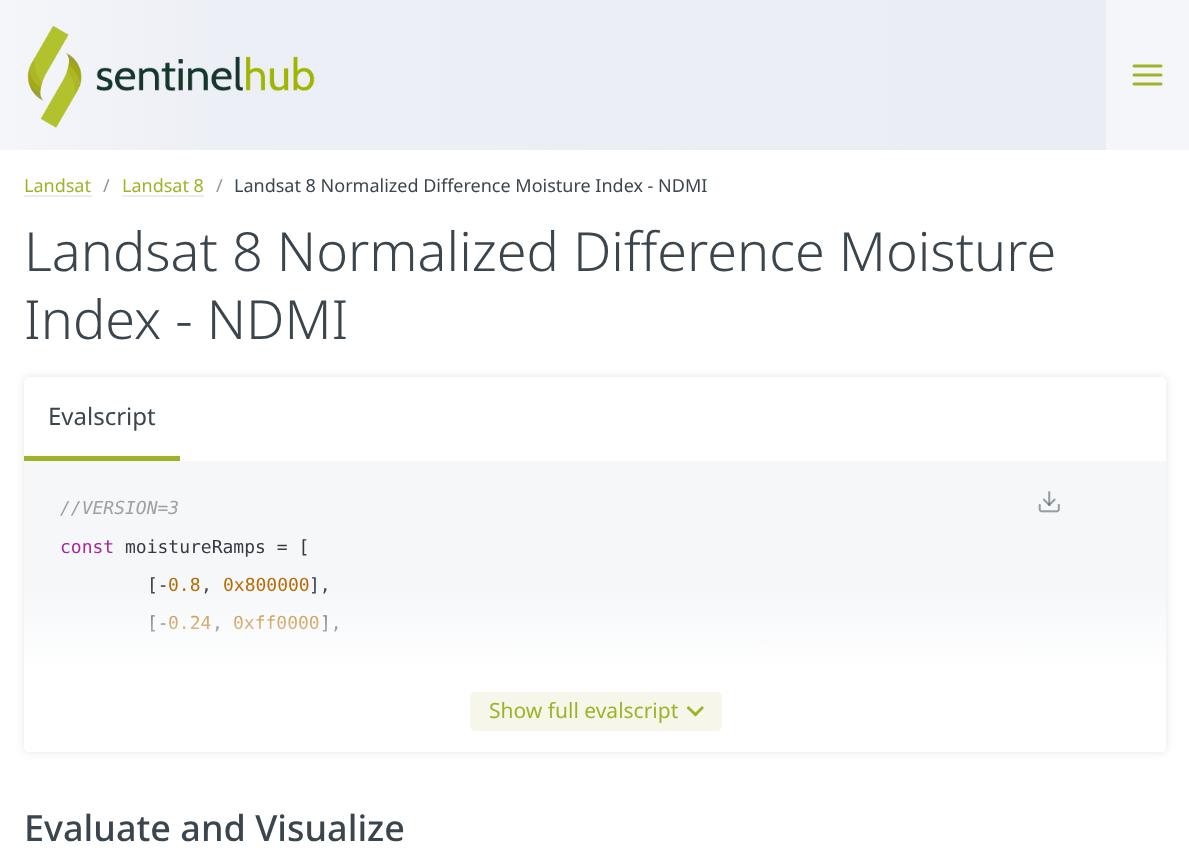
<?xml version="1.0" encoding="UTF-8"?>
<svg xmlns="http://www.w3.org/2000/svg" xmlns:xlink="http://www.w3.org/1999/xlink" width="1189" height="848">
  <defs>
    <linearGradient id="g1" gradientUnits="userSpaceOnUse" x1="1106" y1="75" x2="0" y2="75"><stop offset="0" stop-color="#ebedf5" /><stop offset="0.8" stop-color="#edeff6" /><stop offset="1" stop-color="#f4f6fa" /></linearGradient>
    <linearGradient id="g2" gradientUnits="userSpaceOnUse" x1="595" y1="586" x2="595" y2="752"><stop offset="0" stop-color="#ffffff" stop-opacity="0" /><stop offset="0.5" stop-color="#ffffff" /></linearGradient>
  </defs>
  <rect width="100%" height="100%" fill="#ffffff" />
  <rect x="1106" width="83" height="150" fill="#f5f6fa" />
  <rect width="1106" height="150" fill="url(#g1)" />
  <image x="27" y="25" width="288" height="103" xlink:href="image1.png" />
  <path d="M 1134 75 h 27 m -27 -9 h 27 m -27 18 h 27" fill="none" stroke="#a2b228" stroke-width="3" stroke-linecap="round" stroke-linejoin="round" />
  <rect x="24" y="195" width="68" height="2" fill="#eeebee" />
  <rect x="122" y="195" width="82" height="2" fill="#eeebee" />
  <rect x="24" y="377" width="1142" height="375" rx="5" fill="#000000" fill-opacity="0.1" filter="blur(4px)" />
  <rect x="24" y="377" width="1142" height="375" rx="5" fill="#f5f7f9" />
  <path d="M 29 377 h 1132 c 3 0 5 2 5 5 v 79 h -1142 v -79 c 0 -3 2 -5 5 -5 z" fill="#ffffff" />
  <rect x="24" y="456" width="156" height="5" fill="#a2b228" />
  <image x="1038" y="491" width="22" height="22" xlink:href="image2.png" />
  <text x="24" y="192" style="font-family: Noto Sans; font-size: 18px; fill: #a2b228">Landsat</text>
  <text x="103" y="192" style="font-family: Noto Sans; font-size: 18px; fill: #959396">/</text>
  <text x="122" y="192" style="font-family: Noto Sans; font-size: 18px; fill: #a2b228">Landsat 8</text>
  <text x="216" y="192" style="font-family: Noto Sans; font-size: 18px; fill: #959396">/</text>
  <text x="234" y="192" style="font-family: Noto Sans; font-size: 18px; fill: #3b454e">Landsat 8 Normalized Difference Moisture Index - NDMI</text>
  <text x="24" y="271" style="font-family: Noto Sans; font-size: 54px; font-weight: 300; fill: #3b454e">Landsat 8 Normalized Difference Moisture</text>
  <text x="24" y="339" style="font-family: Noto Sans; font-size: 54px; font-weight: 300; fill: #3b454e">Index - NDMI</text>
  <text x="48" y="425" style="font-family: Noto Sans; font-size: 24px; fill: #3b454e">Evalscript</text>
  <text x="60" y="514" style="font-family: DejaVu Sans Mono; font-size: 18px; font-style: italic; fill: #9fa0a6">//VERSION=3</text>
  <text x="60" y="553" style="font-family: DejaVu Sans Mono; font-size: 18px; fill: #a625a4">const</text>
  <text x="125" y="553" style="font-family: DejaVu Sans Mono; font-size: 18px; fill: #383942">moistureRamps = [</text>
  <text x="147" y="591" style="font-family: DejaVu Sans Mono; font-size: 18px; fill: #383942">[-</text>
  <text x="168" y="591" style="font-family: DejaVu Sans Mono; font-size: 18px; fill: #b66a00">0.8</text>
  <text x="201" y="591" style="font-family: DejaVu Sans Mono; font-size: 18px; fill: #383942">,</text>
  <text x="223" y="591" style="font-family: DejaVu Sans Mono; font-size: 18px; fill: #b66a00">0x800000</text>
  <text x="309" y="591" style="font-family: DejaVu Sans Mono; font-size: 18px; fill: #383942">],</text>
  <text x="147" y="629" style="font-family: DejaVu Sans Mono; font-size: 18px; fill: #383942">[-</text>
  <text x="168" y="629" style="font-family: DejaVu Sans Mono; font-size: 18px; fill: #b66a00">0.24</text>
  <text x="212" y="629" style="font-family: DejaVu Sans Mono; font-size: 18px; fill: #383942">,</text>
  <text x="233" y="629" style="font-family: DejaVu Sans Mono; font-size: 18px; fill: #b66a00">0xff0000</text>
  <text x="320" y="629" style="font-family: DejaVu Sans Mono; font-size: 18px; fill: #383942">],</text>
  <path d="M 24 587 h 1142 v 160 c 0 3 -2 5 -5 5 h -1132 c -3 0 -5 -2 -5 -5 z" fill="url(#g2)" />
  <rect x="470" y="692" width="252" height="39" rx="5" fill="#f6f7ea" />
  <text x="489" y="718" style="font-family: Noto Sans; font-size: 21px; fill: #a2b228">Show full evalscript</text>
  <path d="M 704 708 l -8.5 8.5 l -2 -2 l 8.5 -8.5 z" fill="#a2b228" />
  <path d="M 697.5 714.5 l -2 2 l -9 -8.5 l 2 -2 z" fill="#a2b228" />
  <text x="24" y="841" style="font-family: Noto Sans; font-size: 36px; font-weight: 500; fill: #3b454e">Evaluate and Visualize</text>
</svg>
